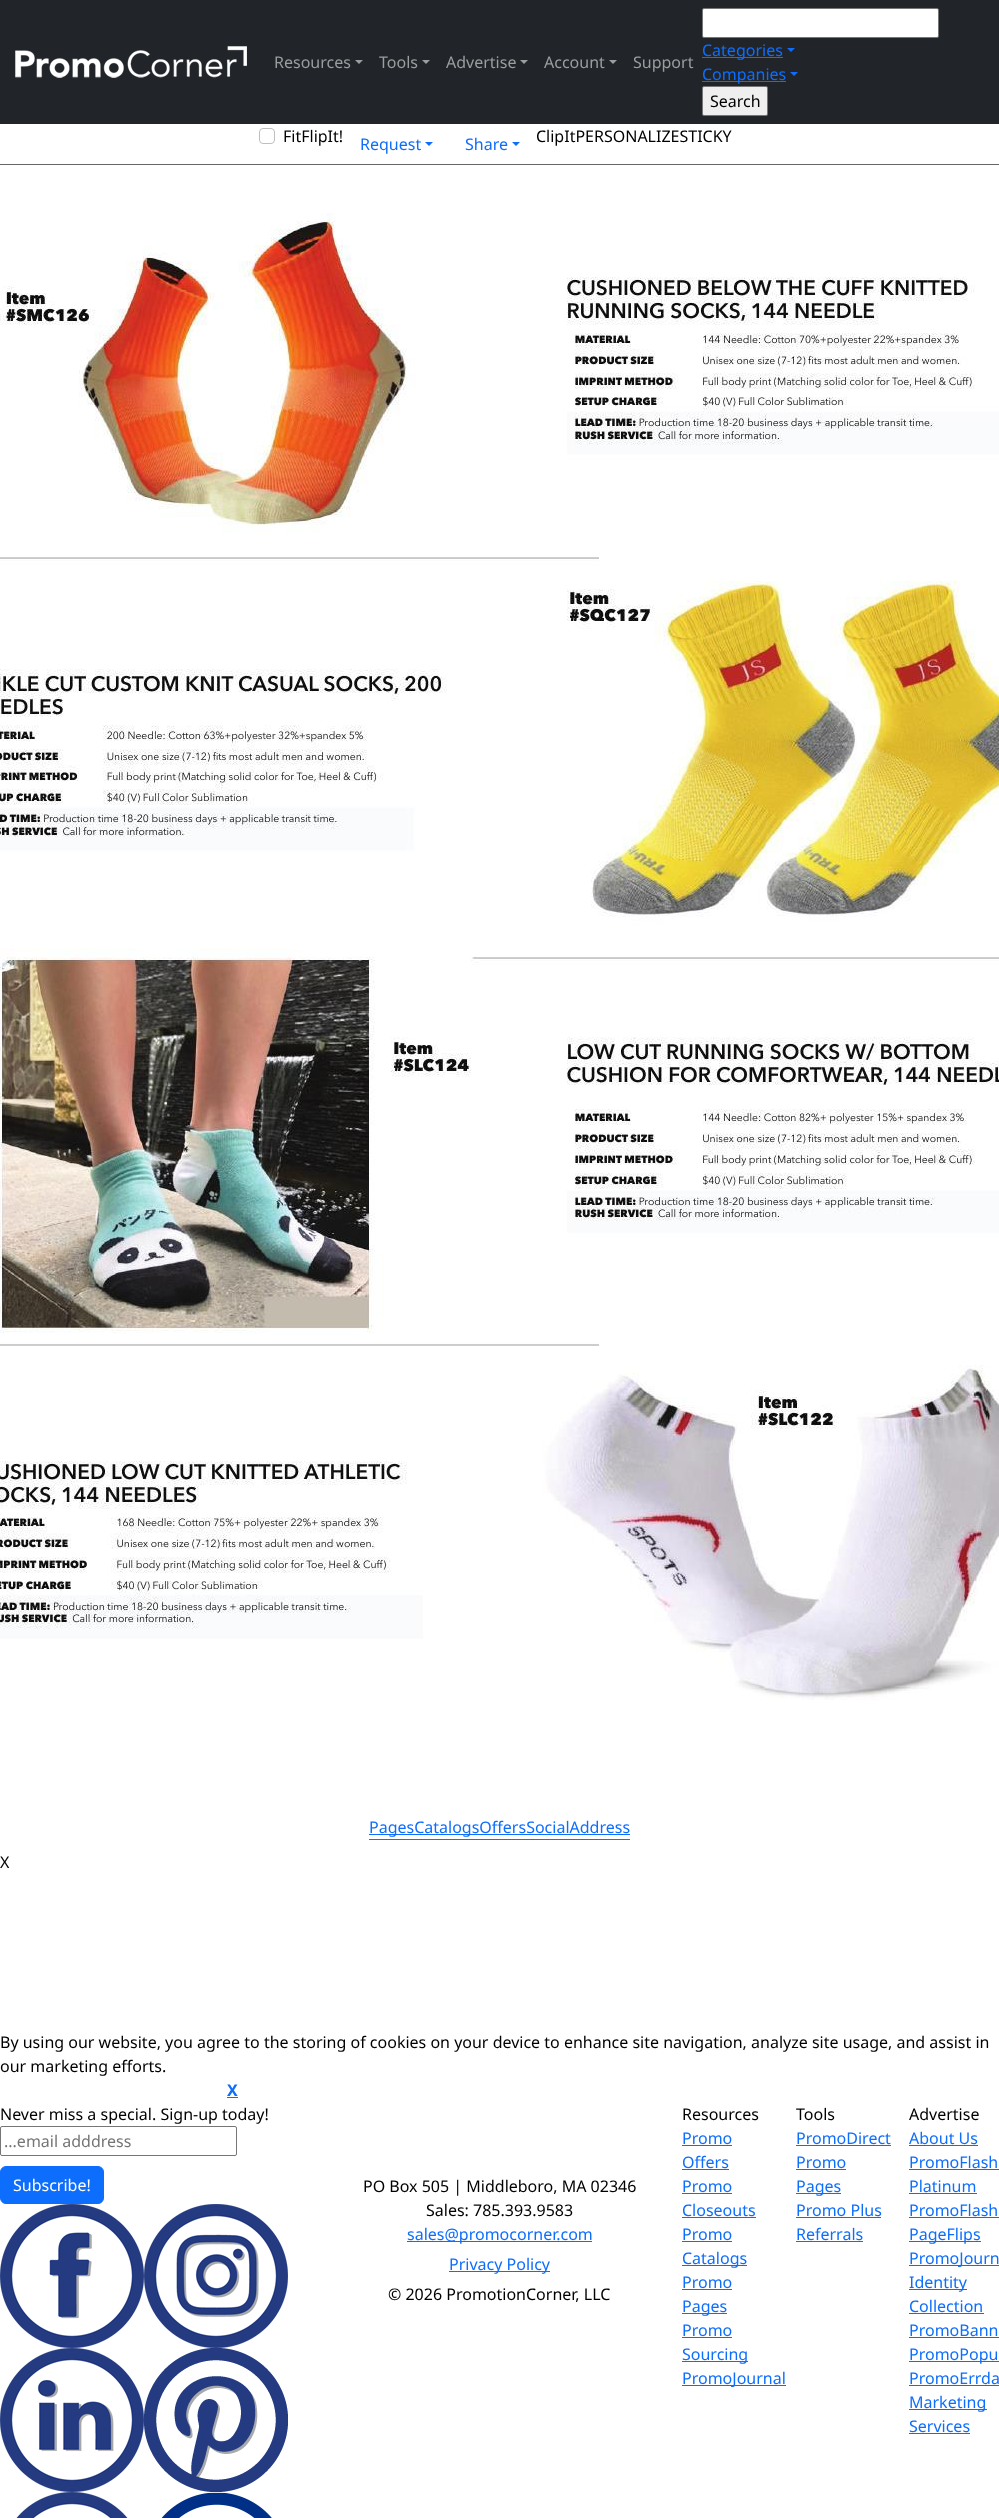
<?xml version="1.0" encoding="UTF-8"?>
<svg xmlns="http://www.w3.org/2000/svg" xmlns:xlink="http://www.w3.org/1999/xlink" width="999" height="2518">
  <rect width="100%" height="100%" fill="#ffffff" />
  <rect width="999" height="124" fill="#212529" />
  <image x="15" y="46" width="232" height="32" xlink:href="image1.png" />
  <path d="M 355 60 h 8 l -4 4 z" fill="#9b9d9f" />
  <path d="M 422 60 h 8 l -4 4 z" fill="#9b9d9f" />
  <path d="M 520 60 h 8 l -4 4 z" fill="#9b9d9f" />
  <path d="M 609 60 h 8 l -4 4 z" fill="#9b9d9f" />
  <rect x="702.5" y="8.5" width="236" height="29" rx="1.5" fill="#ffffff" stroke="#767676" />
  <rect x="702" y="57" width="81" height="1" fill="#0d6efd" />
  <path d="M 787 48 h 8 l -4 4 z" fill="#0d6efd" />
  <rect x="702" y="81" width="84" height="1" fill="#0d6efd" />
  <path d="M 790 72 h 8 l -4 4 z" fill="#0d6efd" />
  <rect x="702.5" y="86.5" width="65" height="29" rx="1.5" fill="#efefef" stroke="#767676" />
  <rect y="164" width="999" height="1" fill="#666666" />
  <rect x="259.5" y="128.5" width="15" height="15" rx="3.5" fill="none" stroke="#bfbfbf" />
  <path d="M 425 142 h 8 l -4 4 z" fill="#0d6efd" />
  <path d="M 512 142 h 8 l -4 4 z" fill="#0d6efd" />
  <image x="0" y="213" width="999" height="1487" xlink:href="image2.png" />
  <rect x="369" y="1839" width="261" height="1" fill="#666666" />
  <rect x="369" y="1834" width="261" height="1" fill="#0d6efd" />
  <rect x="227" y="2097" width="11" height="1" fill="#0d6efd" />
  <rect x="0.5" y="2126.5" width="236" height="29" rx="1.5" fill="none" stroke="#767676" />
  <rect x="0.5" y="2166.5" width="103" height="37" rx="5.5" fill="#0d6efd" stroke="#0d6efd" />
  <image x="0" y="2204" width="144" height="144" xlink:href="image3.png" />
  <image x="144" y="2204" width="144" height="144" xlink:href="image4.png" />
  <image x="0" y="2348" width="144" height="144" xlink:href="image5.png" />
  <image x="144" y="2348" width="144" height="144" xlink:href="image6.png" />
  <image x="16" y="2492" width="112" height="26" xlink:href="image7.png" />
  <image x="161" y="2492" width="111" height="26" xlink:href="image8.png" />
  <rect x="407" y="2241" width="185" height="1" fill="#0d6efd" />
  <rect x="449" y="2271" width="101" height="1" fill="#0d6efd" />
  <rect x="682" y="2145" width="50" height="1" fill="#0d6efd" />
  <rect x="682" y="2169" width="47" height="1" fill="#0d6efd" />
  <rect x="682" y="2193" width="50" height="1" fill="#0d6efd" />
  <rect x="682" y="2217" width="74" height="1" fill="#0d6efd" />
  <rect x="682" y="2241" width="50" height="1" fill="#0d6efd" />
  <rect x="682" y="2265" width="65" height="1" fill="#0d6efd" />
  <rect x="682" y="2289" width="50" height="1" fill="#0d6efd" />
  <rect x="682" y="2313" width="45" height="1" fill="#0d6efd" />
  <rect x="682" y="2337" width="50" height="1" fill="#0d6efd" />
  <rect x="682" y="2361" width="66" height="1" fill="#0d6efd" />
  <rect x="682" y="2385" width="104" height="1" fill="#0d6efd" />
  <rect x="796" y="2145" width="95" height="1" fill="#0d6efd" />
  <rect x="796" y="2169" width="50" height="1" fill="#0d6efd" />
  <rect x="796" y="2193" width="45" height="1" fill="#0d6efd" />
  <rect x="796" y="2217" width="85" height="1" fill="#0d6efd" />
  <rect x="796" y="2241" width="67" height="1" fill="#0d6efd" />
  <rect x="909" y="2145" width="69" height="1" fill="#0d6efd" />
  <rect x="909" y="2169" width="90" height="1" fill="#0d6efd" />
  <rect x="909" y="2193" width="68" height="1" fill="#0d6efd" />
  <rect x="909" y="2217" width="90" height="1" fill="#0d6efd" />
  <rect x="909" y="2241" width="72" height="1" fill="#0d6efd" />
  <rect x="909" y="2265" width="90" height="1" fill="#0d6efd" />
  <rect x="909" y="2289" width="58" height="1" fill="#0d6efd" />
  <rect x="909" y="2313" width="75" height="1" fill="#0d6efd" />
  <rect x="909" y="2337" width="90" height="1" fill="#0d6efd" />
  <rect x="909" y="2361" width="90" height="1" fill="#0d6efd" />
  <rect x="909" y="2385" width="90" height="1" fill="#0d6efd" />
  <rect x="909" y="2409" width="78" height="1" fill="#0d6efd" />
  <rect x="909" y="2433" width="61" height="1" fill="#0d6efd" />
  <text x="274" y="68" style="font-family: Noto Sans; font-size: 16px; fill: #9b9d9f">Resources</text>
  <text x="379" y="68" style="font-family: Noto Sans; font-size: 16px; fill: #9b9d9f">Tools</text>
  <text x="446" y="68" style="font-family: Noto Sans; font-size: 16px; fill: #9b9d9f">Advertise</text>
  <text x="544" y="68" style="font-family: Noto Sans; font-size: 16px; fill: #9b9d9f">Account</text>
  <text x="633" y="68" style="font-family: Noto Sans; font-size: 16px; fill: #9b9d9f">Support</text>
  <text x="702" y="56" style="font-family: Noto Sans; font-size: 16px; fill: #0d6efd">Categories</text>
  <text x="702" y="80" style="font-family: Noto Sans; font-size: 16px; fill: #0d6efd">Companies</text>
  <text x="710" y="107" style="font-family: Noto Sans; font-size: 16px; fill: #000000">Search</text>
  <text x="283" y="142" style="font-family: Noto Sans; font-size: 16px; fill: #000000">FitFlipIt!</text>
  <text x="360" y="150" style="font-family: Noto Sans; font-size: 16px; fill: #0d6efd">Request</text>
  <text x="465" y="150" style="font-family: Noto Sans; font-size: 16px; fill: #0d6efd">Share</text>
  <text x="536" y="142" style="font-family: Noto Sans; font-size: 16px; fill: #000000">ClipItPERSONALIZESTICKY</text>
  <text x="369" y="1833" style="font-family: Noto Sans; font-size: 16px; fill: #0d6efd">PagesCatalogsOffersSocialAddress</text>
  <text x="0" y="1868" style="font-family: Noto Sans; font-size: 16px; fill: #000000">X</text>
  <text x="0" y="2048" style="font-family: Noto Sans; font-size: 16px; fill: #000000">By using our website, you agree to the storing of cookies on your device to enhance site navigation, analyze site usage, and assist in</text>
  <text x="0" y="2072" style="font-family: Noto Sans; font-size: 16px; fill: #000000">our marketing efforts.</text>
  <text x="227" y="2096" style="font-family: Noto Sans; font-size: 16px; font-weight: bold; fill: #0d6efd">X</text>
  <text x="0" y="2120" style="font-family: Noto Sans; font-size: 16px; fill: #000000">Never miss a special. Sign-up today!</text>
  <text x="4" y="2147" style="font-family: Noto Sans; font-size: 16px; fill: #757575">...email adddress</text>
  <text x="13" y="2191" style="font-family: Noto Sans; font-size: 16px; fill: #ffffff">Subscribe!</text>
  <text x="363" y="2192" style="font-family: Noto Sans; font-size: 16px; fill: #000000">PO Box 505 | Middleboro, MA 02346</text>
  <text x="426" y="2216" style="font-family: Noto Sans; font-size: 16px; fill: #000000">Sales: 785.393.9583</text>
  <text x="407" y="2240" style="font-family: Noto Sans; font-size: 16px; fill: #0d6efd">sales@promocorner.com</text>
  <text x="449" y="2270" style="font-family: Noto Sans; font-size: 16px; fill: #0d6efd">Privacy Policy</text>
  <text x="388" y="2300" style="font-family: Noto Sans; font-size: 16px; fill: #000000">© 2026 PromotionCorner, LLC</text>
  <text x="682" y="2120" style="font-family: Noto Sans; font-size: 16px; fill: #000000">Resources</text>
  <text x="682" y="2144" style="font-family: Noto Sans; font-size: 16px; fill: #0d6efd">Promo</text>
  <text x="682" y="2168" style="font-family: Noto Sans; font-size: 16px; fill: #0d6efd">Offers</text>
  <text x="682" y="2192" style="font-family: Noto Sans; font-size: 16px; fill: #0d6efd">Promo</text>
  <text x="682" y="2216" style="font-family: Noto Sans; font-size: 16px; fill: #0d6efd">Closeouts</text>
  <text x="682" y="2240" style="font-family: Noto Sans; font-size: 16px; fill: #0d6efd">Promo</text>
  <text x="682" y="2264" style="font-family: Noto Sans; font-size: 16px; fill: #0d6efd">Catalogs</text>
  <text x="682" y="2288" style="font-family: Noto Sans; font-size: 16px; fill: #0d6efd">Promo</text>
  <text x="682" y="2312" style="font-family: Noto Sans; font-size: 16px; fill: #0d6efd">Pages</text>
  <text x="682" y="2336" style="font-family: Noto Sans; font-size: 16px; fill: #0d6efd">Promo</text>
  <text x="682" y="2360" style="font-family: Noto Sans; font-size: 16px; fill: #0d6efd">Sourcing</text>
  <text x="682" y="2384" style="font-family: Noto Sans; font-size: 16px; fill: #0d6efd">PromoJournal</text>
  <text x="796" y="2120" style="font-family: Noto Sans; font-size: 16px; fill: #000000">Tools</text>
  <text x="796" y="2144" style="font-family: Noto Sans; font-size: 16px; fill: #0d6efd">PromoDirect</text>
  <text x="796" y="2168" style="font-family: Noto Sans; font-size: 16px; fill: #0d6efd">Promo</text>
  <text x="796" y="2192" style="font-family: Noto Sans; font-size: 16px; fill: #0d6efd">Pages</text>
  <text x="796" y="2216" style="font-family: Noto Sans; font-size: 16px; fill: #0d6efd">Promo Plus</text>
  <text x="796" y="2240" style="font-family: Noto Sans; font-size: 16px; fill: #0d6efd">Referrals</text>
  <text x="909" y="2120" style="font-family: Noto Sans; font-size: 16px; fill: #000000">Advertise</text>
  <text x="909" y="2144" style="font-family: Noto Sans; font-size: 16px; fill: #0d6efd">About Us</text>
  <text x="909" y="2168" style="font-family: Noto Sans; font-size: 16px; fill: #0d6efd">PromoFlash</text>
  <text x="909" y="2192" style="font-family: Noto Sans; font-size: 16px; fill: #0d6efd">Platinum</text>
  <text x="909" y="2216" style="font-family: Noto Sans; font-size: 16px; fill: #0d6efd">PromoFlash</text>
  <text x="909" y="2240" style="font-family: Noto Sans; font-size: 16px; fill: #0d6efd">PageFlips</text>
  <text x="909" y="2264" style="font-family: Noto Sans; font-size: 16px; fill: #0d6efd">PromoJourn</text>
  <text x="909" y="2288" style="font-family: Noto Sans; font-size: 16px; fill: #0d6efd">Identity</text>
  <text x="909" y="2312" style="font-family: Noto Sans; font-size: 16px; fill: #0d6efd">Collection</text>
  <text x="909" y="2336" style="font-family: Noto Sans; font-size: 16px; fill: #0d6efd">PromoBann</text>
  <text x="909" y="2360" style="font-family: Noto Sans; font-size: 16px; fill: #0d6efd">PromoPopu</text>
  <text x="909" y="2384" style="font-family: Noto Sans; font-size: 16px; fill: #0d6efd">PromoErrda</text>
  <text x="909" y="2408" style="font-family: Noto Sans; font-size: 16px; fill: #0d6efd">Marketing</text>
  <text x="909" y="2432" style="font-family: Noto Sans; font-size: 16px; fill: #0d6efd">Services</text>
</svg>
